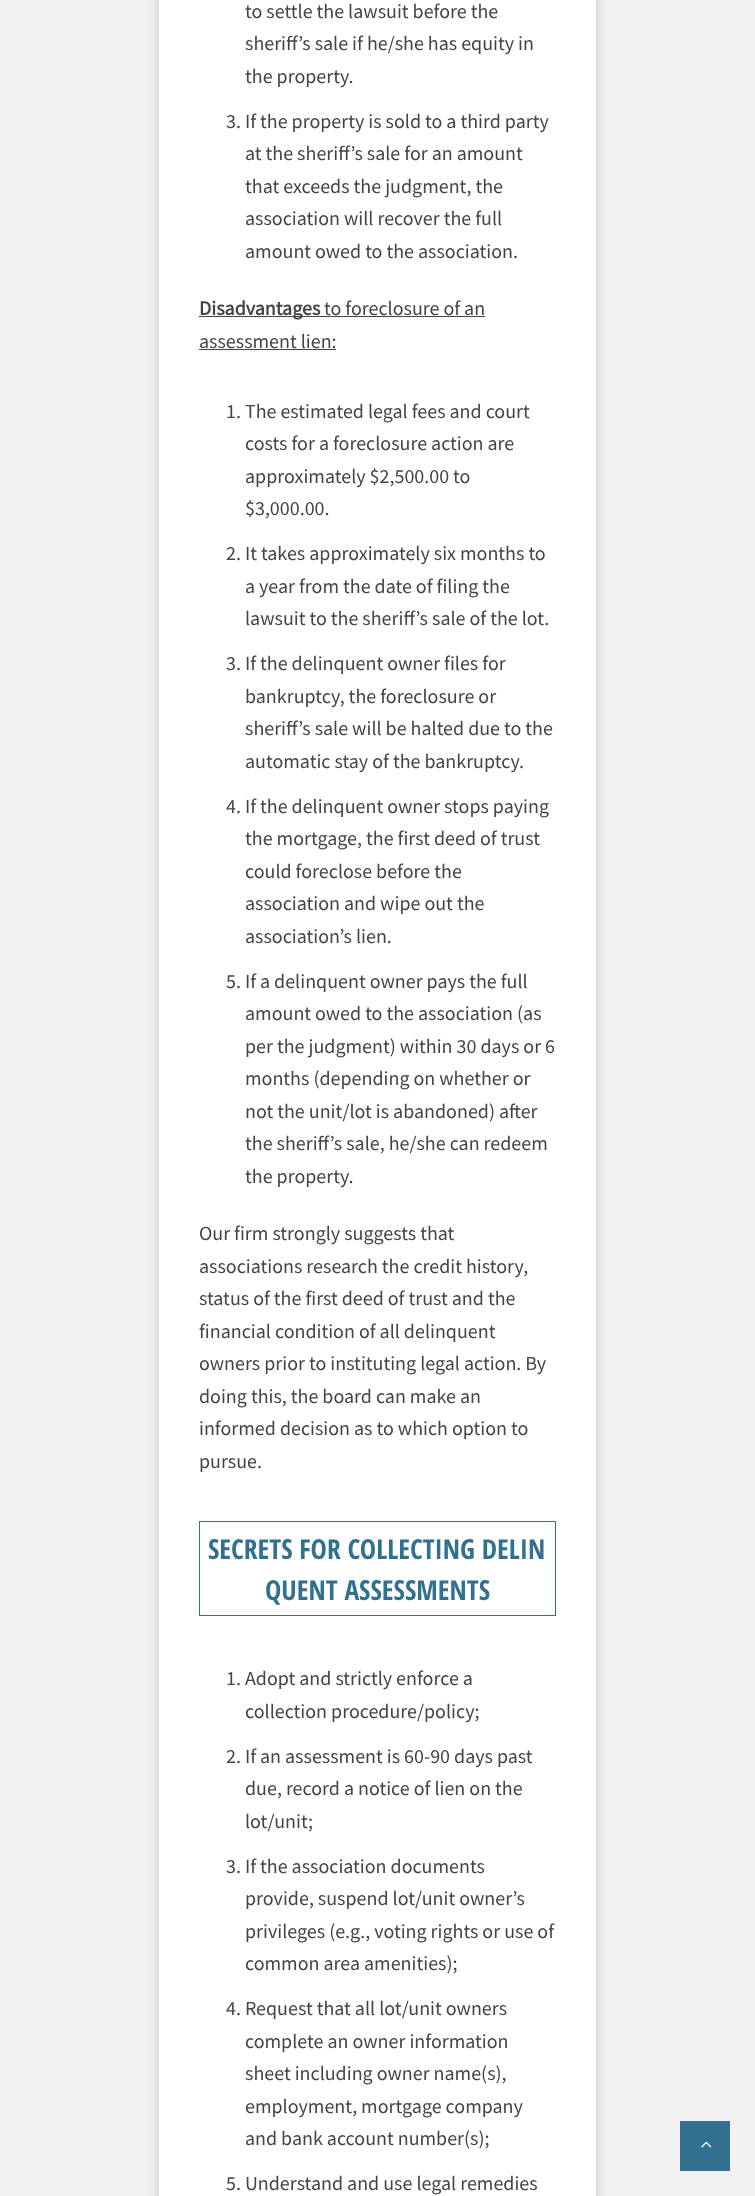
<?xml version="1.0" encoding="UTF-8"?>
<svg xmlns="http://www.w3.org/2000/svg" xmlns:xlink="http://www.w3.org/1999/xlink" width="755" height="2196">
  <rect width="100%" height="100%" fill="#f2f1f1" />
  <rect x="159" y="-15" width="437" height="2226" fill="#000000" fill-opacity="0.2" filter="blur(5px)" />
  <rect x="159" width="437" height="2196" fill="#ffffff" />
  <rect x="199" y="316" width="286" height="1" fill="#444445" />
  <rect x="199" y="349" width="137" height="1" fill="#444445" />
  <rect x="199.5" y="1521.5" width="356" height="94" fill="none" stroke="#31708f" />
  <rect x="680" y="2121" width="50" height="50" fill="#31708f" />
  <image x="701" y="2141" width="11" height="7" xlink:href="image1.png" />
  <text x="245" y="18" style="font-family: Source Sans Pro; font-size: 20px; fill: #444445">to settle the lawsuit before the</text>
  <text x="245" y="50" style="font-family: Source Sans Pro; font-size: 20px; fill: #444445">sheriff’s sale if he/she has equity in</text>
  <text x="245" y="83" style="font-family: Source Sans Pro; font-size: 20px; fill: #444445">the property.</text>
  <text x="226" y="128" style="font-family: Source Sans Pro; font-size: 20px; fill: #444445">3. If the property is sold to a third party</text>
  <text x="245" y="160" style="font-family: Source Sans Pro; font-size: 20px; fill: #444445">at the sheriff’s sale for an amount</text>
  <text x="245" y="193" style="font-family: Source Sans Pro; font-size: 20px; fill: #444445">that exceeds the judgment, the</text>
  <text x="245" y="225" style="font-family: Source Sans Pro; font-size: 20px; fill: #444445">association will recover the full</text>
  <text x="245" y="258" style="font-family: Source Sans Pro; font-size: 20px; fill: #444445">amount owed to the association.</text>
  <text x="199" y="315" style="font-family: Source Sans Pro; font-size: 20px; font-weight: bold; fill: #444445">Disadvantages</text>
  <text x="324" y="315" style="font-family: Source Sans Pro; font-size: 20px; fill: #444445">to foreclosure of an</text>
  <text x="199" y="348" style="font-family: Source Sans Pro; font-size: 20px; fill: #444445">assessment lien:</text>
  <text x="226" y="418" style="font-family: Source Sans Pro; font-size: 20px; fill: #444445">1. The estimated legal fees and court</text>
  <text x="245" y="450" style="font-family: Source Sans Pro; font-size: 20px; fill: #444445">costs for a foreclosure action are</text>
  <text x="245" y="483" style="font-family: Source Sans Pro; font-size: 20px; fill: #444445">approximately $2,500.00 to</text>
  <text x="245" y="515" style="font-family: Source Sans Pro; font-size: 20px; fill: #444445">$3,000.00.</text>
  <text x="226" y="560" style="font-family: Source Sans Pro; font-size: 20px; fill: #444445">2. It takes approximately six months to</text>
  <text x="245" y="593" style="font-family: Source Sans Pro; font-size: 20px; fill: #444445">a year from the date of filing the</text>
  <text x="245" y="625" style="font-family: Source Sans Pro; font-size: 20px; fill: #444445">lawsuit to the sheriff’s sale of the lot.</text>
  <text x="226" y="670" style="font-family: Source Sans Pro; font-size: 20px; fill: #444445">3. If the delinquent owner files for</text>
  <text x="245" y="703" style="font-family: Source Sans Pro; font-size: 20px; fill: #444445">bankruptcy, the foreclosure or</text>
  <text x="245" y="735" style="font-family: Source Sans Pro; font-size: 20px; fill: #444445">sheriff’s sale will be halted due to the</text>
  <text x="245" y="768" style="font-family: Source Sans Pro; font-size: 20px; fill: #444445">automatic stay of the bankruptcy.</text>
  <text x="226" y="813" style="font-family: Source Sans Pro; font-size: 20px; fill: #444445">4. If the delinquent owner stops paying</text>
  <text x="245" y="845" style="font-family: Source Sans Pro; font-size: 20px; fill: #444445">the mortgage, the first deed of trust</text>
  <text x="245" y="878" style="font-family: Source Sans Pro; font-size: 20px; fill: #444445">could foreclose before the</text>
  <text x="245" y="910" style="font-family: Source Sans Pro; font-size: 20px; fill: #444445">association and wipe out the</text>
  <text x="245" y="943" style="font-family: Source Sans Pro; font-size: 20px; fill: #444445">association’s lien.</text>
  <text x="226" y="988" style="font-family: Source Sans Pro; font-size: 20px; fill: #444445">5. If a delinquent owner pays the full</text>
  <text x="245" y="1020" style="font-family: Source Sans Pro; font-size: 20px; fill: #444445">amount owed to the association (as</text>
  <text x="245" y="1053" style="font-family: Source Sans Pro; font-size: 20px; fill: #444445">per the judgment) within 30 days or 6</text>
  <text x="245" y="1085" style="font-family: Source Sans Pro; font-size: 20px; fill: #444445">months (depending on whether or</text>
  <text x="245" y="1118" style="font-family: Source Sans Pro; font-size: 20px; fill: #444445">not the unit/lot is abandoned) after</text>
  <text x="245" y="1150" style="font-family: Source Sans Pro; font-size: 20px; fill: #444445">the sheriff’s sale, he/she can redeem</text>
  <text x="245" y="1183" style="font-family: Source Sans Pro; font-size: 20px; fill: #444445">the property.</text>
  <text x="199" y="1240" style="font-family: Source Sans Pro; font-size: 20px; fill: #444445">Our firm strongly suggests that</text>
  <text x="199" y="1273" style="font-family: Source Sans Pro; font-size: 20px; fill: #444445">associations research the credit history,</text>
  <text x="199" y="1305" style="font-family: Source Sans Pro; font-size: 20px; fill: #444445">status of the first deed of trust and the</text>
  <text x="199" y="1338" style="font-family: Source Sans Pro; font-size: 20px; fill: #444445">financial condition of all delinquent</text>
  <text x="199" y="1370" style="font-family: Source Sans Pro; font-size: 20px; fill: #444445">owners prior to instituting legal action. By</text>
  <text x="199" y="1403" style="font-family: Source Sans Pro; font-size: 20px; fill: #444445">doing this, the board can make an</text>
  <text x="199" y="1435" style="font-family: Source Sans Pro; font-size: 20px; fill: #444445">informed decision as to which option to</text>
  <text x="199" y="1468" style="font-family: Source Sans Pro; font-size: 20px; fill: #444445">pursue.</text>
  <text x="208" y="1559" style="font-family: Open Sans Condensed; font-size: 27.5px; font-weight: bold; fill: #31708f">SECRETS FOR COLLECTING DELIN</text>
  <text x="265" y="1600" style="font-family: Open Sans Condensed; font-size: 27.5px; font-weight: bold; fill: #31708f">QUENT ASSESSMENTS</text>
  <text x="226" y="1685" style="font-family: Source Sans Pro; font-size: 20px; fill: #444445">1. Adopt and strictly enforce a</text>
  <text x="245" y="1718" style="font-family: Source Sans Pro; font-size: 20px; fill: #444445">collection procedure/policy;</text>
  <text x="226" y="1763" style="font-family: Source Sans Pro; font-size: 20px; fill: #444445">2. If an assessment is 60-90 days past</text>
  <text x="245" y="1795" style="font-family: Source Sans Pro; font-size: 20px; fill: #444445">due, record a notice of lien on the</text>
  <text x="245" y="1828" style="font-family: Source Sans Pro; font-size: 20px; fill: #444445">lot/unit;</text>
  <text x="226" y="1873" style="font-family: Source Sans Pro; font-size: 20px; fill: #444445">3. If the association documents</text>
  <text x="245" y="1905" style="font-family: Source Sans Pro; font-size: 20px; fill: #444445">provide, suspend lot/unit owner’s</text>
  <text x="245" y="1938" style="font-family: Source Sans Pro; font-size: 20px; fill: #444445">privileges (e.g., voting rights or use of</text>
  <text x="245" y="1970" style="font-family: Source Sans Pro; font-size: 20px; fill: #444445">common area amenities);</text>
  <text x="226" y="2015" style="font-family: Source Sans Pro; font-size: 20px; fill: #444445">4. Request that all lot/unit owners</text>
  <text x="245" y="2048" style="font-family: Source Sans Pro; font-size: 20px; fill: #444445">complete an owner information</text>
  <text x="245" y="2080" style="font-family: Source Sans Pro; font-size: 20px; fill: #444445">sheet including owner name(s),</text>
  <text x="245" y="2113" style="font-family: Source Sans Pro; font-size: 20px; fill: #444445">employment, mortgage company</text>
  <text x="245" y="2145" style="font-family: Source Sans Pro; font-size: 20px; fill: #444445">and bank account number(s);</text>
  <text x="226" y="2190" style="font-family: Source Sans Pro; font-size: 20px; fill: #444445">5. Understand and use legal remedies</text>
</svg>
